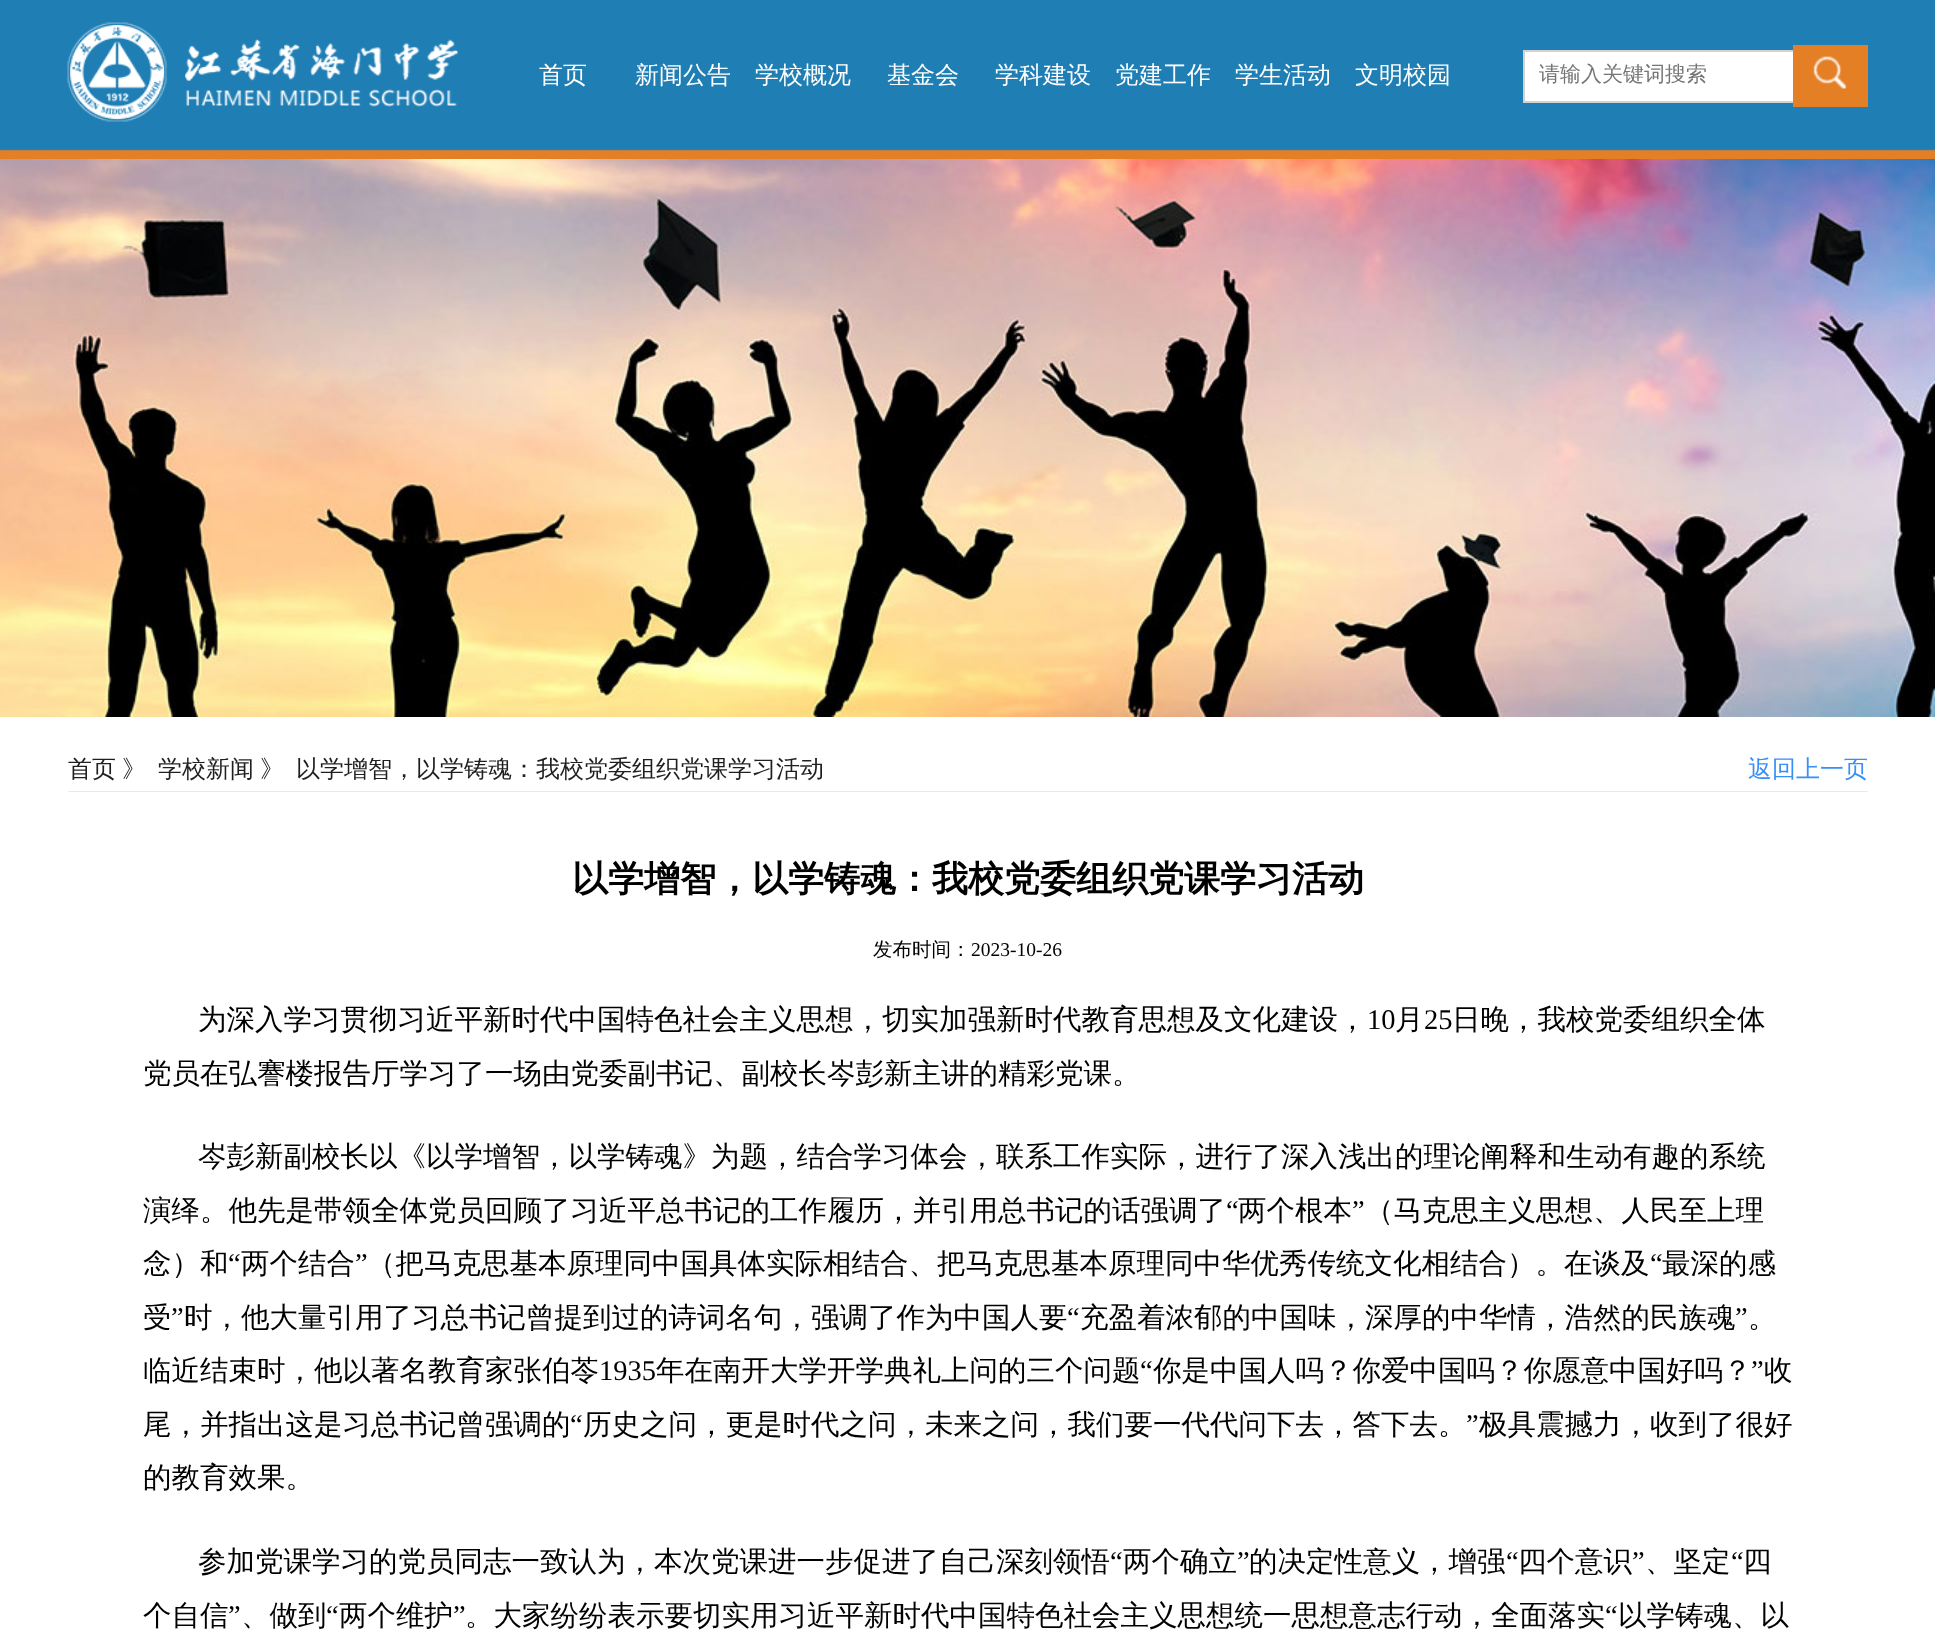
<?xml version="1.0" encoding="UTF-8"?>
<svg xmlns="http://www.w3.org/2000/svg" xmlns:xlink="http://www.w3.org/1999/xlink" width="1935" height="1644">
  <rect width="100%" height="100%" fill="#ffffff" />
  <image x="0" y="0" width="1935" height="159" xlink:href="image1.png" />
  <image x="67" y="22" width="391" height="100" xlink:href="image2.png" />
  <rect x="1525" y="52" width="268" height="49" fill="#ffffff" />
  <rect x="1523" y="50" width="270" height="2" fill="#d2d2d2" />
  <rect x="1523" y="101" width="270" height="2" fill="#d2d2d2" />
  <rect x="1523" y="50" width="2" height="52" fill="#d2d2d2" />
  <rect x="1793" y="45" width="75" height="62" fill="#e47f25" />
  <image x="1813" y="56" width="34" height="33" xlink:href="image3.png" />
  <image x="0" y="159" width="1935" height="558" xlink:href="image4.png" />
  <rect x="68" y="791" width="1800" height="1" fill="#eaeaea" />
  <text x="539" y="83" style="font-family: WenQuanYi Zen Hei; font-size: 24px; font-weight: 500; fill: #ffffff">首页</text>
  <text x="635" y="83" style="font-family: WenQuanYi Zen Hei; font-size: 24px; font-weight: 500; fill: #ffffff">新闻公告</text>
  <text x="755" y="83" style="font-family: WenQuanYi Zen Hei; font-size: 24px; font-weight: 500; fill: #ffffff">学校概况</text>
  <text x="887" y="83" style="font-family: WenQuanYi Zen Hei; font-size: 24px; font-weight: 500; fill: #ffffff">基金会</text>
  <text x="995" y="83" style="font-family: WenQuanYi Zen Hei; font-size: 24px; font-weight: 500; fill: #ffffff">学科建设</text>
  <text x="1115" y="83" style="font-family: WenQuanYi Zen Hei; font-size: 24px; font-weight: 500; fill: #ffffff">党建工作</text>
  <text x="1235" y="83" style="font-family: WenQuanYi Zen Hei; font-size: 24px; font-weight: 500; fill: #ffffff">学生活动</text>
  <text x="1355" y="83" style="font-family: WenQuanYi Zen Hei; font-size: 24px; font-weight: 500; fill: #ffffff">文明校园</text>
  <text x="1539" y="81" style="font-family: WenQuanYi Zen Hei; font-size: 21px; font-weight: 500; fill: #757575">请输入关键词搜索</text>
  <text x="68" y="777" style="font-family: WenQuanYi Zen Hei; font-size: 24px; font-weight: 500; fill: #1f1f1f">首页</text>
  <text x="122" y="777" style="font-family: WenQuanYi Zen Hei; font-size: 24px; font-weight: 500; fill: #1f1f1f">》</text>
  <text x="158" y="777" style="font-family: WenQuanYi Zen Hei; font-size: 24px; font-weight: 500; fill: #1f1f1f">学校新闻</text>
  <text x="260" y="777" style="font-family: WenQuanYi Zen Hei; font-size: 24px; font-weight: 500; fill: #1f1f1f">》</text>
  <text x="296" y="777" style="font-family: WenQuanYi Zen Hei; font-size: 24px; font-weight: 500; fill: #1f1f1f">以学增智，以学铸魂：我校党委组织党课学习活动</text>
  <text x="1748" y="777" style="font-family: WenQuanYi Zen Hei; font-size: 24px; font-weight: 500; fill: #398ff5">返回上一页</text>
  <text x="572" y="891" style="font-family: WenQuanYi Zen Hei; font-size: 36px; font-weight: bold; fill: #000000">以学增智，以学铸魂：我校党委组织党课学习活动</text>
  <text x="873" y="956" style="font-family: WenQuanYi Zen Hei; font-size: 19.5px; font-weight: 500; fill: #000000">发布时间：</text>
  <text x="971" y="956" style="font-family: Liberation Serif; font-size: 19.5px; fill: #000000">2023-10-26</text>
  <text x="198" y="1029" style="font-family: WenQuanYi Zen Hei; font-size: 28.5px; font-weight: 500; fill: #000000">为深入学习贯彻习近平新时代中国特色社会主义思想，切实加强新时代教育思想及文化建设，</text>
  <text x="1367" y="1029" style="font-family: Liberation Serif; font-size: 28.5px; fill: #000000">10</text>
  <text x="1395" y="1029" style="font-family: WenQuanYi Zen Hei; font-size: 28.5px; font-weight: 500; fill: #000000">月</text>
  <text x="1424" y="1029" style="font-family: Liberation Serif; font-size: 28.5px; fill: #000000">25</text>
  <text x="1452" y="1029" style="font-family: WenQuanYi Zen Hei; font-size: 28.5px; font-weight: 500; fill: #000000">日晚，我校党委组织全体</text>
  <text x="143" y="1083" style="font-family: WenQuanYi Zen Hei; font-size: 28.5px; font-weight: 500; fill: #000000">党员在弘謇楼报告厅学习了一场由党委副书记、副校长岑彭新主讲的精彩党课。</text>
  <text x="198" y="1166" style="font-family: WenQuanYi Zen Hei; font-size: 28.5px; font-weight: 500; fill: #000000">岑彭新副校长以《以学增智，以学铸魂》为题，结合学习体会，联系工作实际，进行了深入浅出的理论阐释和生动有趣的系统</text>
  <text x="143" y="1220" style="font-family: WenQuanYi Zen Hei; font-size: 28.5px; font-weight: 500; fill: #000000">演绎。他先是带领全体党员回顾了习近平总书记的工作履历，并引用总书记的话强调了</text>
  <text x="1226" y="1220" style="font-family: Liberation Serif; font-size: 28.5px; fill: #000000">“</text>
  <text x="1238" y="1220" style="font-family: WenQuanYi Zen Hei; font-size: 28.5px; font-weight: 500; fill: #000000">两个根本</text>
  <text x="1352" y="1220" style="font-family: Liberation Serif; font-size: 28.5px; fill: #000000">”</text>
  <text x="1365" y="1220" style="font-family: WenQuanYi Zen Hei; font-size: 28.5px; font-weight: 500; fill: #000000">（马克思主义思想、人民至上理</text>
  <text x="143" y="1273" style="font-family: WenQuanYi Zen Hei; font-size: 28.5px; font-weight: 500; fill: #000000">念）和</text>
  <text x="228" y="1273" style="font-family: Liberation Serif; font-size: 28.5px; fill: #000000">“</text>
  <text x="241" y="1273" style="font-family: WenQuanYi Zen Hei; font-size: 28.5px; font-weight: 500; fill: #000000">两个结合</text>
  <text x="355" y="1273" style="font-family: Liberation Serif; font-size: 28.5px; fill: #000000">”</text>
  <text x="367" y="1273" style="font-family: WenQuanYi Zen Hei; font-size: 28.5px; font-weight: 500; fill: #000000">（把马克思基本原理同中国具体实际相结合、把马克思基本原理同中华优秀传统文化相结合）。在谈及</text>
  <text x="1650" y="1273" style="font-family: Liberation Serif; font-size: 28.5px; fill: #000000">“</text>
  <text x="1662" y="1273" style="font-family: WenQuanYi Zen Hei; font-size: 28.5px; font-weight: 500; fill: #000000">最深的感</text>
  <text x="143" y="1327" style="font-family: WenQuanYi Zen Hei; font-size: 28.5px; font-weight: 500; fill: #000000">受</text>
  <text x="171" y="1327" style="font-family: Liberation Serif; font-size: 28.5px; fill: #000000">”</text>
  <text x="184" y="1327" style="font-family: WenQuanYi Zen Hei; font-size: 28.5px; font-weight: 500; fill: #000000">时，他大量引用了习总书记曾提到过的诗词名句，强调了作为中国人要</text>
  <text x="1067" y="1327" style="font-family: Liberation Serif; font-size: 28.5px; fill: #000000">“</text>
  <text x="1080" y="1327" style="font-family: WenQuanYi Zen Hei; font-size: 28.5px; font-weight: 500; fill: #000000">充盈着浓郁的中国味，深厚的中华情，浩然的民族魂</text>
  <text x="1735" y="1327" style="font-family: Liberation Serif; font-size: 28.5px; fill: #000000">”</text>
  <text x="1748" y="1327" style="font-family: WenQuanYi Zen Hei; font-size: 28.5px; font-weight: 500; fill: #000000">。</text>
  <text x="143" y="1380" style="font-family: WenQuanYi Zen Hei; font-size: 28.5px; font-weight: 500; fill: #000000">临近结束时，他以著名教育家张伯苓</text>
  <text x="599" y="1380" style="font-family: Liberation Serif; font-size: 28.5px; fill: #000000">1935</text>
  <text x="656" y="1380" style="font-family: WenQuanYi Zen Hei; font-size: 28.5px; font-weight: 500; fill: #000000">年在南开大学开学典礼上问的三个问题</text>
  <text x="1140" y="1380" style="font-family: Liberation Serif; font-size: 28.5px; fill: #000000">“</text>
  <text x="1153" y="1380" style="font-family: WenQuanYi Zen Hei; font-size: 28.5px; font-weight: 500; fill: #000000">你是中国人吗？你爱中国吗？你愿意中国好吗？</text>
  <text x="1751" y="1380" style="font-family: Liberation Serif; font-size: 28.5px; fill: #000000">”</text>
  <text x="1764" y="1380" style="font-family: WenQuanYi Zen Hei; font-size: 28.5px; font-weight: 500; fill: #000000">收</text>
  <text x="143" y="1434" style="font-family: WenQuanYi Zen Hei; font-size: 28.5px; font-weight: 500; fill: #000000">尾，并指出这是习总书记曾强调的</text>
  <text x="570" y="1434" style="font-family: Liberation Serif; font-size: 28.5px; fill: #000000">“</text>
  <text x="583" y="1434" style="font-family: WenQuanYi Zen Hei; font-size: 28.5px; font-weight: 500; fill: #000000">历史之问，更是时代之问，未来之问，我们要一代代问下去，答下去。</text>
  <text x="1466" y="1434" style="font-family: Liberation Serif; font-size: 28.5px; fill: #000000">”</text>
  <text x="1479" y="1434" style="font-family: WenQuanYi Zen Hei; font-size: 28.5px; font-weight: 500; fill: #000000">极具震撼力，收到了很好</text>
  <text x="143" y="1487" style="font-family: WenQuanYi Zen Hei; font-size: 28.5px; font-weight: 500; fill: #000000">的教育效果。</text>
  <text x="198" y="1571" style="font-family: WenQuanYi Zen Hei; font-size: 28.5px; font-weight: 500; fill: #000000">参加党课学习的党员同志一致认为，本次党课进一步促进了自己深刻领悟</text>
  <text x="1110" y="1571" style="font-family: Liberation Serif; font-size: 28.5px; fill: #000000">“</text>
  <text x="1123" y="1571" style="font-family: WenQuanYi Zen Hei; font-size: 28.5px; font-weight: 500; fill: #000000">两个确立</text>
  <text x="1237" y="1571" style="font-family: Liberation Serif; font-size: 28.5px; fill: #000000">”</text>
  <text x="1249" y="1571" style="font-family: WenQuanYi Zen Hei; font-size: 28.5px; font-weight: 500; fill: #000000">的决定性意义，增强</text>
  <text x="1506" y="1571" style="font-family: Liberation Serif; font-size: 28.5px; fill: #000000">“</text>
  <text x="1518" y="1571" style="font-family: WenQuanYi Zen Hei; font-size: 28.5px; font-weight: 500; fill: #000000">四个意识</text>
  <text x="1632" y="1571" style="font-family: Liberation Serif; font-size: 28.5px; fill: #000000">”</text>
  <text x="1645" y="1571" style="font-family: WenQuanYi Zen Hei; font-size: 28.5px; font-weight: 500; fill: #000000">、坚定</text>
  <text x="1731" y="1571" style="font-family: Liberation Serif; font-size: 28.5px; fill: #000000">“</text>
  <text x="1743" y="1571" style="font-family: WenQuanYi Zen Hei; font-size: 28.5px; font-weight: 500; fill: #000000">四</text>
  <text x="143" y="1625" style="font-family: WenQuanYi Zen Hei; font-size: 28.5px; font-weight: 500; fill: #000000">个自信</text>
  <text x="228" y="1625" style="font-family: Liberation Serif; font-size: 28.5px; fill: #000000">”</text>
  <text x="241" y="1625" style="font-family: WenQuanYi Zen Hei; font-size: 28.5px; font-weight: 500; fill: #000000">、做到</text>
  <text x="326" y="1625" style="font-family: Liberation Serif; font-size: 28.5px; fill: #000000">“</text>
  <text x="339" y="1625" style="font-family: WenQuanYi Zen Hei; font-size: 28.5px; font-weight: 500; fill: #000000">两个维护</text>
  <text x="453" y="1625" style="font-family: Liberation Serif; font-size: 28.5px; fill: #000000">”</text>
  <text x="465" y="1625" style="font-family: WenQuanYi Zen Hei; font-size: 28.5px; font-weight: 500; fill: #000000">。大家纷纷表示要切实用习近平新时代中国特色社会主义思想统一思想意志行动，全面落实</text>
  <text x="1605" y="1625" style="font-family: Liberation Serif; font-size: 28.5px; fill: #000000">“</text>
  <text x="1618" y="1625" style="font-family: WenQuanYi Zen Hei; font-size: 28.5px; font-weight: 500; fill: #000000">以学铸魂、以</text>
</svg>
